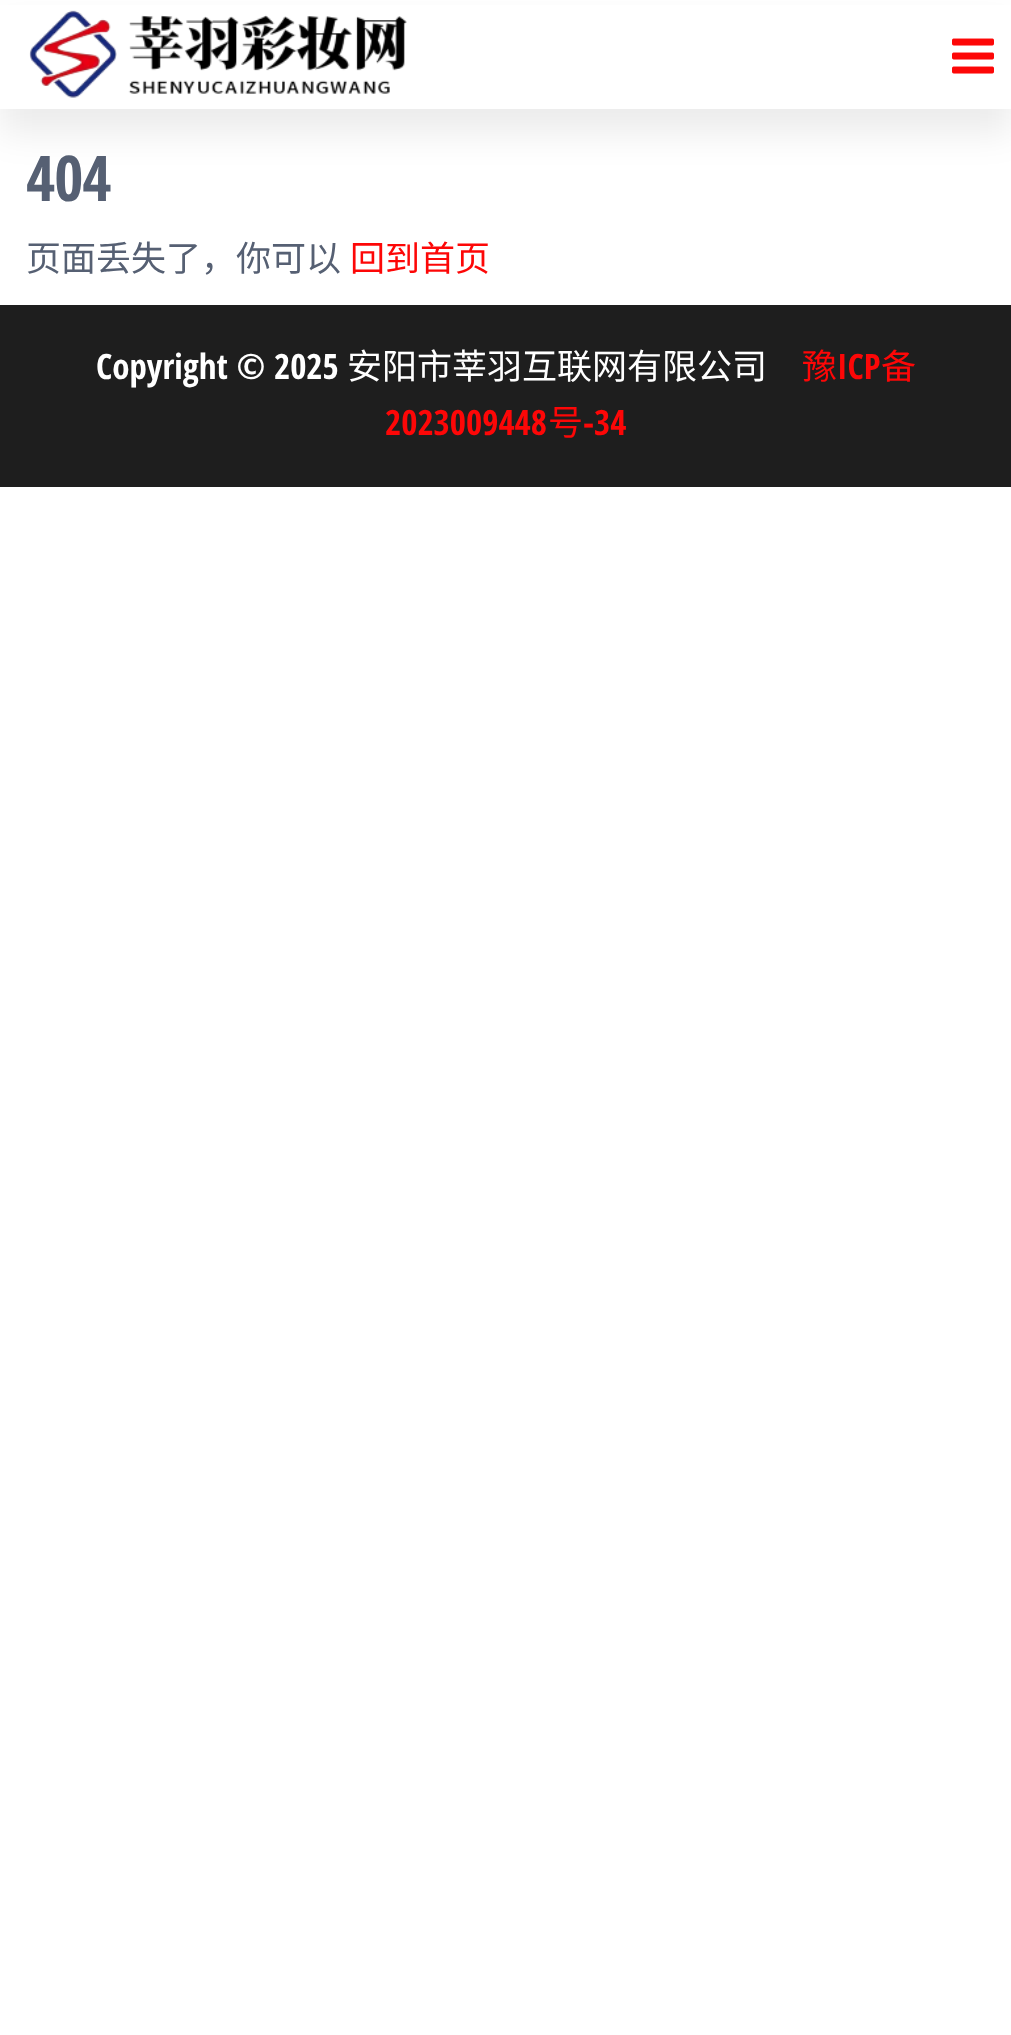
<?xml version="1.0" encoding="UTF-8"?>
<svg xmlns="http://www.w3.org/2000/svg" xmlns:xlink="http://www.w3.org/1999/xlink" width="1011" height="2035">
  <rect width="100%" height="100%" fill="#ffffff" />
  <rect y="25" width="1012" height="108" fill="#000000" fill-opacity="0.08" filter="blur(17.5px)" />
  <rect y="5" width="1011" height="104" fill="#ffffff" />
  <image x="29" y="10" width="378" height="88" xlink:href="image1.png" />
  <image x="952" y="38" width="42" height="36" xlink:href="image2.png" />
  <rect y="305" width="1011" height="182" fill="#1e1e1e" />
  <text x="26" y="201" style="font-family: Open Sans Condensed; font-size: 63px; font-weight: bold; letter-spacing: -1px; fill: #566073">404</text>
  <text x="26" y="271" style="font-family: Noto Sans CJK SC; font-size: 35px; fill: #566073">页面丢失了，你可以</text>
  <text x="350" y="271" style="font-family: Noto Sans CJK SC; font-size: 35px; fill: #fd0707">回到首页</text>
  <text x="96" y="379" style="font-family: Open Sans Condensed; font-size: 35px; font-weight: bold; fill: #ffffff">Copyright © 2025</text>
  <text x="347" y="379" style="font-family: Noto Sans CJK SC; font-size: 35px; fill: #ffffff">安阳市莘羽互联网有限公司</text>
  <text x="802" y="379" style="font-family: Noto Sans CJK SC; font-size: 35px; fill: #fd0707">豫</text>
  <text x="837" y="379" style="font-family: Open Sans Condensed; font-size: 35px; font-weight: bold; fill: #fd0707">ICP</text>
  <text x="881" y="379" style="font-family: Noto Sans CJK SC; font-size: 35px; fill: #fd0707">备</text>
  <text x="385" y="435" style="font-family: Open Sans Condensed; font-size: 35px; font-weight: bold; fill: #fd0707">2023009448</text>
  <text x="548" y="435" style="font-family: Noto Sans CJK SC; font-size: 35px; fill: #fd0707">号</text>
  <text x="583" y="435" style="font-family: Open Sans Condensed; font-size: 35px; font-weight: bold; fill: #fd0707">-34</text>
</svg>
